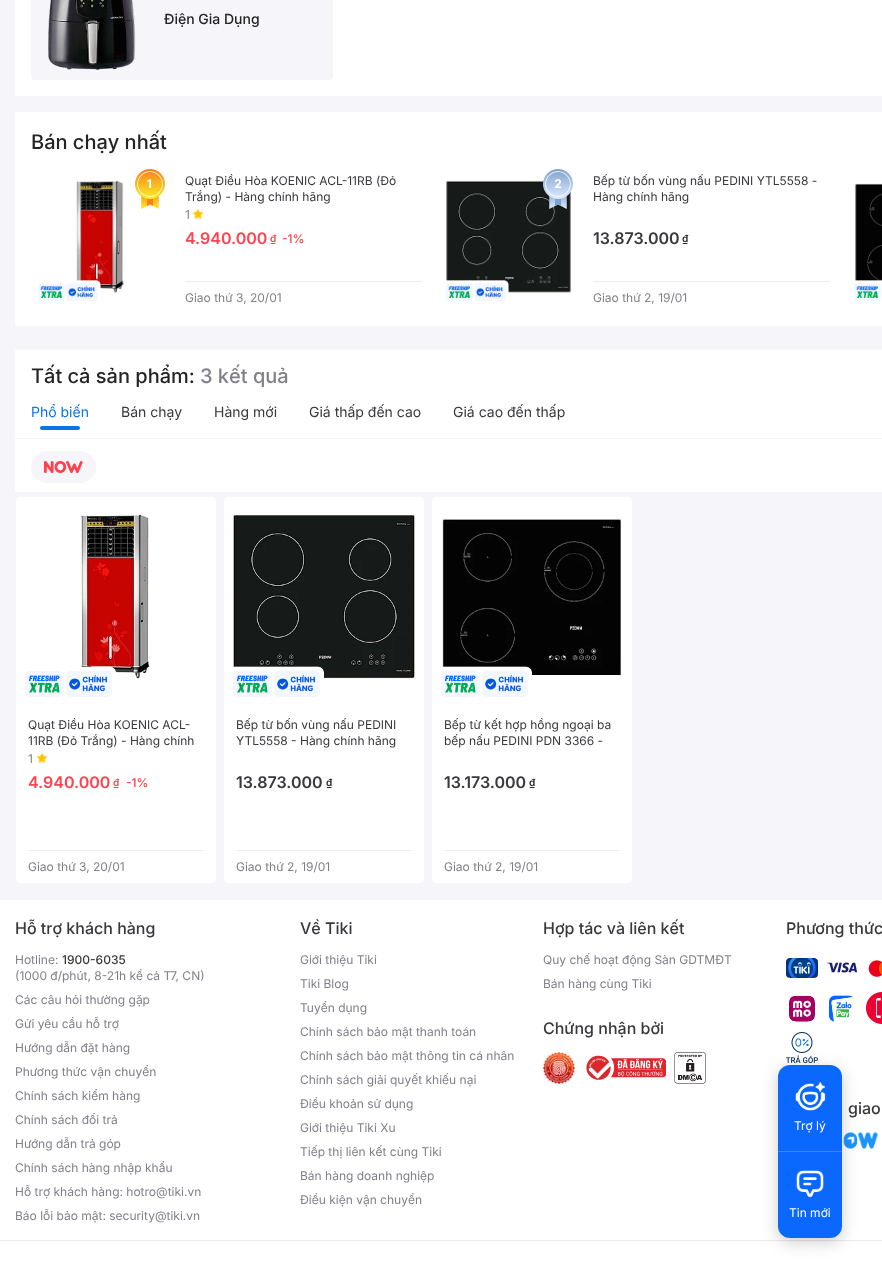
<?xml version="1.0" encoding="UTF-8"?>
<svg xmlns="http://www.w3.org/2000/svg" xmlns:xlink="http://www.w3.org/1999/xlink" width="882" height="1262">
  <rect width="100%" height="100%" fill="#f5f5fa" />
  <rect x="15" width="867" height="96" fill="#ffffff" />
  <rect x="31" y="-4" width="302" height="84" rx="4" fill="#f5f5fa" />
  <image x="48" y="0" width="88" height="70" xlink:href="image1.png" />
  <rect x="15" y="112" width="867" height="214" fill="#ffffff" />
  <image x="76" y="180" width="48" height="113" xlink:href="image2.png" />
  <image x="38" y="280" width="63" height="21" xlink:href="image3.png" />
  <image x="135" y="169" width="30" height="40" xlink:href="image4.png" />
  <image x="192" y="208" width="12" height="12" xlink:href="image5.png" />
  <rect x="185" y="281" width="237" height="1" fill="#ebebf0" />
  <image x="445" y="180" width="127" height="114" xlink:href="image7.png" />
  <image x="543" y="169" width="30" height="40" xlink:href="image6.png" />
  <image x="445" y="280" width="64" height="21" xlink:href="image8.png" />
  <rect x="593" y="281" width="237" height="1" fill="#ebebf0" />
  <image x="854" y="183" width="28" height="98" xlink:href="image9.png" />
  <image x="854" y="280" width="28" height="21" xlink:href="image10.png" />
  <rect x="15" y="350" width="867" height="142" fill="#ffffff" />
  <rect x="40" y="426" width="40" height="4" rx="2" fill="#0b74e5" />
  <rect x="15" y="438" width="867" height="1" fill="#f5f5fa" />
  <rect x="31" y="451" width="65" height="32" rx="16" fill="#f5f5fa" />
  <image x="44" y="461" width="39" height="12" xlink:href="image11.png" />
  <rect x="16" y="497" width="200" height="386" rx="4" fill="#ffffff" />
  <image x="80" y="513" width="70" height="166" xlink:href="image12.png" />
  <image x="25" y="666" width="91" height="31" xlink:href="image13.png" />
  <image x="36" y="752" width="12" height="12" xlink:href="image14.png" />
  <rect x="28" y="850" width="176" height="1" fill="#ebebf0" />
  <rect x="224" y="497" width="200" height="386" rx="4" fill="#ffffff" />
  <image x="232" y="514" width="184" height="166" xlink:href="image15.png" />
  <image x="232" y="666" width="92" height="31" xlink:href="image16.png" />
  <rect x="236" y="850" width="176" height="1" fill="#ebebf0" />
  <rect x="432" y="497" width="200" height="386" rx="4" fill="#ffffff" />
  <image x="442" y="518" width="180" height="157" xlink:href="image17.png" />
  <image x="441" y="666" width="91" height="31" xlink:href="image18.png" />
  <rect x="444" y="850" width="176" height="1" fill="#ebebf0" />
  <rect y="900" width="882" height="362" fill="#ffffff" />
  <image x="543" y="1052" width="32" height="32" xlink:href="image19.png" />
  <image x="586" y="1055" width="80" height="25" xlink:href="image20.png" />
  <image x="674" y="1052" width="32" height="32" xlink:href="image21.png" />
  <image x="786" y="958" width="32" height="20" xlink:href="image22.png" />
  <image x="826" y="962" width="32" height="11" xlink:href="image23.png" />
  <image x="868" y="960" width="14" height="17" xlink:href="image24.png" />
  <image x="789" y="995" width="26" height="27" xlink:href="image25.png" />
  <image x="829" y="995" width="26" height="27" xlink:href="image26.png" />
  <image x="866" y="992" width="16" height="32" xlink:href="image27.png" />
  <image x="786" y="1032" width="32" height="31" xlink:href="image28.png" />
  <image x="843" y="1132" width="35" height="17" xlink:href="image29.png" />
  <rect y="1240" width="882" height="1" fill="#ebebf0" />
  <rect x="778" y="1069" width="64" height="173" rx="12" fill="#000000" fill-opacity="0.2" filter="blur(8px)" />
  <rect x="778" y="1065" width="64" height="173" rx="12" fill="#0a68ff" />
  <image x="795" y="1082" width="31" height="29" xlink:href="image30.png" />
  <rect x="778" y="1151" width="64" height="1" fill="#3b86ff" />
  <image x="796" y="1170" width="28" height="28" xlink:href="image31.png" />
  <text x="164" y="24" style="font-family: Inter; font-size: 14px; font-weight: 500; fill: #242424">Điện Gia Dụng</text>
  <text x="31" y="149" style="font-family: Inter; font-size: 20px; font-weight: 500; fill: #242424">Bán chạy nhất</text>
  <text x="185" y="185" style="font-family: Inter; font-size: 12px; fill: #38383d">Quạt Điều Hòa KOENIC ACL-11RB (Đỏ</text>
  <text x="185" y="201" style="font-family: Inter; font-size: 12px; fill: #38383d">Trắng) - Hàng chính hãng</text>
  <text x="185" y="219" style="font-family: Inter; font-size: 12px; fill: #808089">1</text>
  <text x="185" y="244" style="font-family: Inter; font-size: 16px; font-weight: 600; fill: #ff424e">4.940.000</text>
  <text x="270" y="242" style="font-family: Inter; font-size: 10px; font-weight: 600; fill: #ff424e">₫</text>
  <text x="282" y="243" style="font-family: Inter; font-size: 12px; font-weight: 500; fill: #ff424e">-1%</text>
  <text x="185" y="302" style="font-family: Inter; font-size: 12px; fill: #808089">Giao thứ 3, 20/01</text>
  <text x="593" y="185" style="font-family: Inter; font-size: 12px; fill: #38383d">Bếp từ bốn vùng nấu PEDINI YTL5558 -</text>
  <text x="593" y="201" style="font-family: Inter; font-size: 12px; fill: #38383d">Hàng chính hãng</text>
  <text x="593" y="244" style="font-family: Inter; font-size: 16px; font-weight: 600; fill: #38383d">13.873.000</text>
  <text x="682" y="242" style="font-family: Inter; font-size: 10px; font-weight: 600; fill: #242424">₫</text>
  <text x="593" y="302" style="font-family: Inter; font-size: 12px; fill: #808089">Giao thứ 2, 19/01</text>
  <text x="31" y="383" style="font-family: Inter; font-size: 20px; font-weight: 500; fill: #242424">Tất cả sản phẩm:</text>
  <text x="200" y="383" style="font-family: Inter; font-size: 20px; font-weight: 500; fill: #808089">3 kết quả</text>
  <text x="31" y="417" style="font-family: Inter; font-size: 14px; fill: #0b74e5">Phổ biến</text>
  <text x="121" y="417" style="font-family: Inter; font-size: 14px; fill: #38383d">Bán chạy</text>
  <text x="214" y="417" style="font-family: Inter; font-size: 14px; fill: #38383d">Hàng mới</text>
  <text x="309" y="417" style="font-family: Inter; font-size: 14px; fill: #38383d">Giá thấp đến cao</text>
  <text x="453" y="417" style="font-family: Inter; font-size: 14px; fill: #38383d">Giá cao đến thấp</text>
  <text x="28" y="729" style="font-family: Inter; font-size: 12px; fill: #38383d">Quạt Điều Hòa KOENIC ACL-</text>
  <text x="28" y="745" style="font-family: Inter; font-size: 12px; fill: #38383d">11RB (Đỏ Trắng) - Hàng chính</text>
  <text x="28" y="763" style="font-family: Inter; font-size: 12px; fill: #808089">1</text>
  <text x="28" y="788" style="font-family: Inter; font-size: 16px; font-weight: 600; fill: #ff424e">4.940.000</text>
  <text x="113" y="786" style="font-family: Inter; font-size: 10px; font-weight: 600; fill: #ff424e">₫</text>
  <text x="126" y="787" style="font-family: Inter; font-size: 12px; font-weight: 500; fill: #ff424e">-1%</text>
  <text x="28" y="871" style="font-family: Inter; font-size: 12px; fill: #808089">Giao thứ 3, 20/01</text>
  <text x="236" y="729" style="font-family: Inter; font-size: 12px; fill: #38383d">Bếp từ bốn vùng nấu PEDINI</text>
  <text x="236" y="745" style="font-family: Inter; font-size: 12px; fill: #38383d">YTL5558 - Hàng chính hãng</text>
  <text x="236" y="788" style="font-family: Inter; font-size: 16px; font-weight: 600; fill: #38383d">13.873.000</text>
  <text x="326" y="786" style="font-family: Inter; font-size: 10px; font-weight: 600; fill: #242424">₫</text>
  <text x="236" y="871" style="font-family: Inter; font-size: 12px; fill: #808089">Giao thứ 2, 19/01</text>
  <text x="444" y="729" style="font-family: Inter; font-size: 12px; fill: #38383d">Bếp từ kết hợp hồng ngoại ba</text>
  <text x="444" y="745" style="font-family: Inter; font-size: 12px; fill: #38383d">bếp nấu PEDINI PDN 3366 -</text>
  <text x="444" y="788" style="font-family: Inter; font-size: 16px; font-weight: 600; fill: #38383d">13.173.000</text>
  <text x="529" y="786" style="font-family: Inter; font-size: 10px; font-weight: 600; fill: #242424">₫</text>
  <text x="444" y="871" style="font-family: Inter; font-size: 12px; fill: #808089">Giao thứ 2, 19/01</text>
  <text x="15" y="934" style="font-family: Inter; font-size: 16px; font-weight: 500; fill: #38383d">Hỗ trợ khách hàng</text>
  <text x="15" y="964" style="font-family: Inter; font-size: 12px; fill: #808089">Hotline:</text>
  <text x="62" y="964" style="font-family: Inter; font-size: 12px; font-weight: 500; fill: #38383d">1900-6035</text>
  <text x="15" y="980" style="font-family: Inter; font-size: 12px; fill: #808089">(1000 đ/phút, 8-21h kể cả T7, CN)</text>
  <text x="15" y="1004" style="font-family: Inter; font-size: 12px; fill: #808089">Các câu hỏi thường gặp</text>
  <text x="15" y="1028" style="font-family: Inter; font-size: 12px; fill: #808089">Gửi yêu cầu hỗ trợ</text>
  <text x="15" y="1052" style="font-family: Inter; font-size: 12px; fill: #808089">Hướng dẫn đặt hàng</text>
  <text x="15" y="1076" style="font-family: Inter; font-size: 12px; fill: #808089">Phương thức vận chuyển</text>
  <text x="15" y="1100" style="font-family: Inter; font-size: 12px; fill: #808089">Chính sách kiểm hàng</text>
  <text x="15" y="1124" style="font-family: Inter; font-size: 12px; fill: #808089">Chính sách đổi trả</text>
  <text x="15" y="1148" style="font-family: Inter; font-size: 12px; fill: #808089">Hướng dẫn trả góp</text>
  <text x="15" y="1172" style="font-family: Inter; font-size: 12px; fill: #808089">Chính sách hàng nhập khẩu</text>
  <text x="15" y="1196" style="font-family: Inter; font-size: 12px; fill: #808089">Hỗ trợ khách hàng: hotro@tiki.vn</text>
  <text x="15" y="1220" style="font-family: Inter; font-size: 12px; fill: #808089">Báo lỗi bảo mật: security@tiki.vn</text>
  <text x="300" y="934" style="font-family: Inter; font-size: 16px; font-weight: 500; fill: #38383d">Về Tiki</text>
  <text x="300" y="964" style="font-family: Inter; font-size: 12px; fill: #808089">Giới thiệu Tiki</text>
  <text x="300" y="988" style="font-family: Inter; font-size: 12px; fill: #808089">Tiki Blog</text>
  <text x="300" y="1012" style="font-family: Inter; font-size: 12px; fill: #808089">Tuyển dụng</text>
  <text x="300" y="1036" style="font-family: Inter; font-size: 12px; fill: #808089">Chính sách bảo mật thanh toán</text>
  <text x="300" y="1060" style="font-family: Inter; font-size: 12px; fill: #808089">Chính sách bảo mật thông tin cá nhân</text>
  <text x="300" y="1084" style="font-family: Inter; font-size: 12px; fill: #808089">Chính sách giải quyết khiếu nại</text>
  <text x="300" y="1108" style="font-family: Inter; font-size: 12px; fill: #808089">Điều khoản sử dụng</text>
  <text x="300" y="1132" style="font-family: Inter; font-size: 12px; fill: #808089">Giới thiệu Tiki Xu</text>
  <text x="300" y="1156" style="font-family: Inter; font-size: 12px; fill: #808089">Tiếp thị liên kết cùng Tiki</text>
  <text x="300" y="1180" style="font-family: Inter; font-size: 12px; fill: #808089">Bán hàng doanh nghiệp</text>
  <text x="300" y="1204" style="font-family: Inter; font-size: 12px; fill: #808089">Điều kiện vận chuyển</text>
  <text x="543" y="934" style="font-family: Inter; font-size: 16px; font-weight: 500; fill: #38383d">Hợp tác và liên kết</text>
  <text x="543" y="964" style="font-family: Inter; font-size: 12px; fill: #808089">Quy chế hoạt động Sàn GDTMĐT</text>
  <text x="543" y="988" style="font-family: Inter; font-size: 12px; fill: #808089">Bán hàng cùng Tiki</text>
  <text x="543" y="1034" style="font-family: Inter; font-size: 16px; font-weight: 500; fill: #38383d">Chứng nhận bởi</text>
  <text x="786" y="934" style="font-family: Inter; font-size: 16px; font-weight: 500; fill: #38383d">Phương thức</text>
  <text x="848" y="1114" style="font-family: Inter; font-size: 16px; font-weight: 500; fill: #38383d">giao</text>
  <text x="794" y="1130" style="font-family: Inter; font-size: 12px; fill: #ffffff">Trợ lý</text>
  <text x="789" y="1217" style="font-family: Inter; font-size: 12px; fill: #ffffff">Tin mới</text>
</svg>
